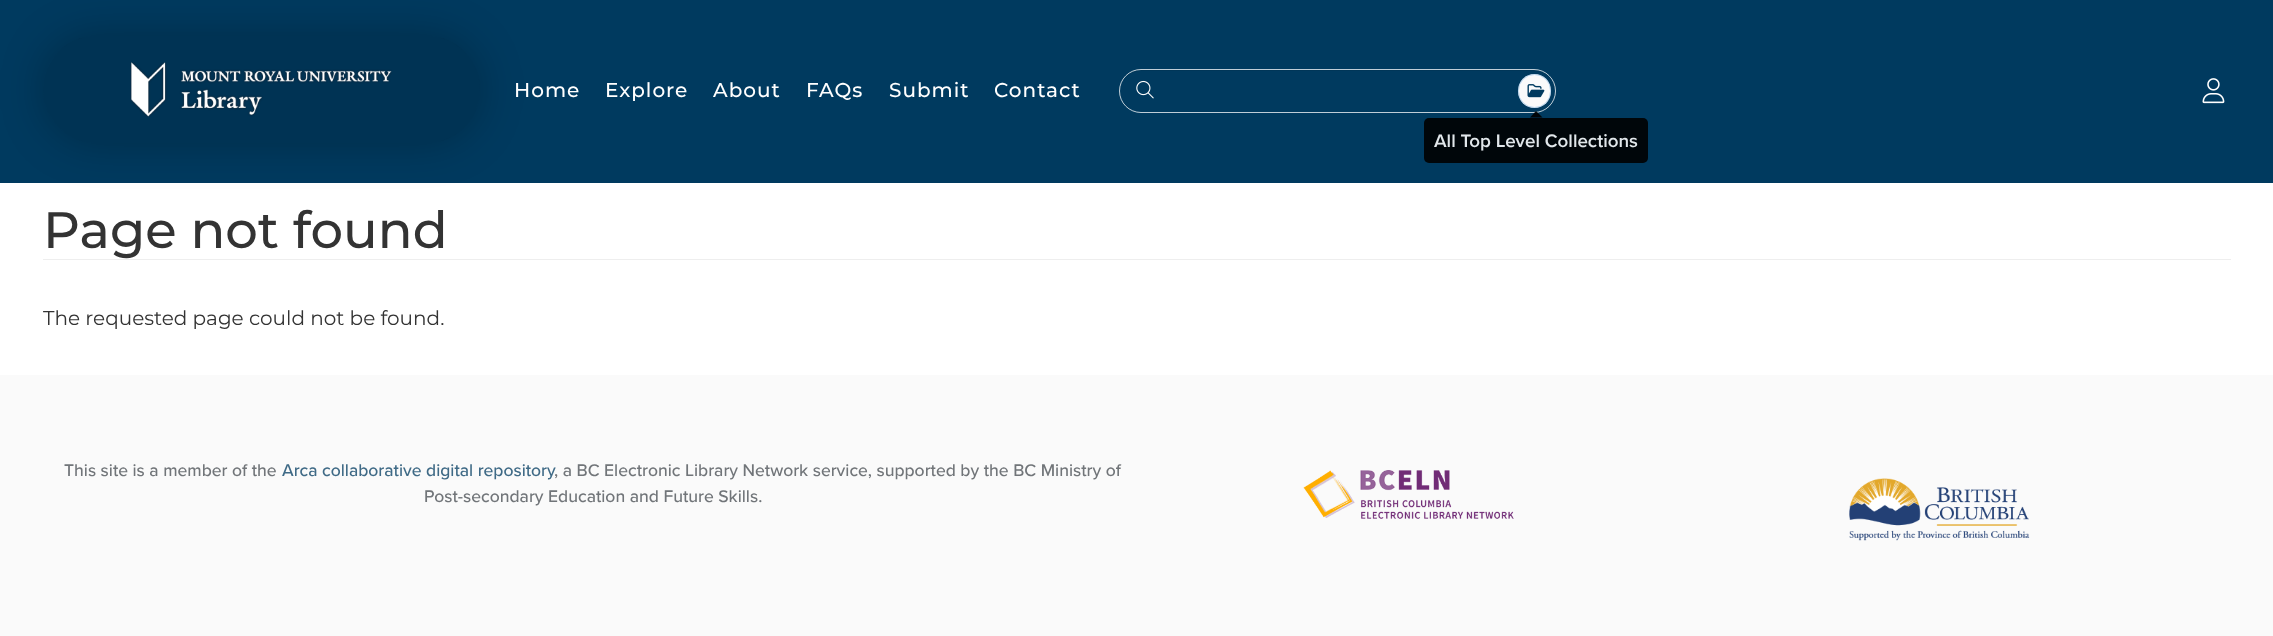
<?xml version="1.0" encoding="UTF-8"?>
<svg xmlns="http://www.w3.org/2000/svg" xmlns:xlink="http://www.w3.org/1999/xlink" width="2273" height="636">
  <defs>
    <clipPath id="clip1"><path d="M 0 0 h 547 v 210 h -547 z m 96.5 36 h 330 c 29.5 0 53.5 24 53.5 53.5 c 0 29.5 -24 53.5 -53.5 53.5 h -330 c -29.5 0 -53.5 -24 -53.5 -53.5 c 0 -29.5 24 -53.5 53.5 -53.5 z" clip-rule="evenodd" /></clipPath>
  </defs>
  <rect width="100%" height="100%" fill="#ffffff" />
  <rect width="2273" height="183" fill="#003a5f" />
  <g clip-path="url(#clip1)">
    <rect x="43" y="36" width="437" height="107" rx="53.5" fill="#000000" fill-opacity="0.24" filter="blur(22px)" />
  </g>
  <rect x="43" y="36" width="437" height="107" rx="53.5" fill="#000000" fill-opacity="0.11" />
  <image x="130" y="62" width="262" height="55" xlink:href="image1.png" />
  <path d="M 1141 71 h 393 c 12 0 21 9 21 20 c 0 -11 -9 -21 -21 -21 h -394 c -11 0 -20 10 -20 21 c 0 -11 9 -20 21 -20 z" fill="#003658" />
  <rect x="1119.5" y="69.5" width="436" height="43" rx="21.5" fill="none" stroke="#ffffff" stroke-opacity="0.75" />
  <image x="1136" y="80" width="18" height="19" xlink:href="image2.png" />
  <rect x="1518" y="74" width="33" height="34" rx="16.5" fill="#fafafa" />
  <rect x="1518.5" y="74.5" width="32" height="33" rx="16" fill="none" stroke="#0f76d7" stroke-opacity="0.25" />
  <image x="1527" y="84" width="18" height="14" xlink:href="image3.png" />
  <image x="2202" y="78" width="23" height="26" xlink:href="image4.png" />
  <rect x="43" y="259" width="2188" height="1" fill="#eeeeee" />
  <rect y="375" width="2273" height="261" fill="#fafafa" />
  <image x="1303" y="470" width="211" height="49" xlink:href="image5.png" />
  <image x="1849" y="478" width="181" height="63" xlink:href="image6.png" />
  <path d="M 1542.5 117.5 h -12.5 l 6 -6.5 z" fill="#000000" fill-opacity="0.9" />
  <rect x="1424" y="118" width="224" height="45" rx="5" fill="#00060a" />
  <text x="514" y="97" style="font-family: Montserrat; font-size: 20px; font-weight: 500; letter-spacing: 1px; fill: #ffffff">Home</text>
  <text x="605" y="97" style="font-family: Montserrat; font-size: 20px; font-weight: 500; letter-spacing: 1px; fill: #ffffff">Explore</text>
  <text x="713" y="97" style="font-family: Montserrat; font-size: 20px; font-weight: 500; letter-spacing: 1px; fill: #ffffff">About</text>
  <text x="806" y="97" style="font-family: Montserrat; font-size: 20px; font-weight: 500; letter-spacing: 1px; fill: #ffffff">FAQs</text>
  <text x="889" y="97" style="font-family: Montserrat; font-size: 20px; font-weight: 500; letter-spacing: 1px; fill: #ffffff">Submit</text>
  <text x="994" y="97" style="font-family: Montserrat; font-size: 20px; font-weight: 500; letter-spacing: 1px; fill: #ffffff">Contact</text>
  <text x="43" y="248" style="font-family: Montserrat; font-size: 51.25px; font-weight: 500; fill: #333333">Page not found</text>
  <text x="43" y="325" style="font-family: Montserrat; font-size: 20px; fill: #333333">The requested page could not be found.</text>
  <text x="64" y="476" style="font-family: Proxima Nova; font-size: 17.5px; font-weight: 500; fill: #717579">This site is a member of the</text>
  <text x="282" y="476" style="font-family: Proxima Nova; font-size: 17.5px; font-weight: 500; fill: #3f6a86">Arca collaborative digital repository</text>
  <text x="554" y="476" style="font-family: Proxima Nova; font-size: 17.5px; font-weight: 500; fill: #717579">, a BC Electronic Library Network service, supported by the BC Ministry of</text>
  <text x="424" y="502" style="font-family: Proxima Nova; font-size: 17.5px; font-weight: 500; fill: #717579">Post-secondary Education and Future Skills.</text>
  <text x="1434" y="147" style="font-family: Proxima Nova; font-size: 18.75px; font-weight: 600; fill: #e1e7eb">All Top Level Collections</text>
</svg>
